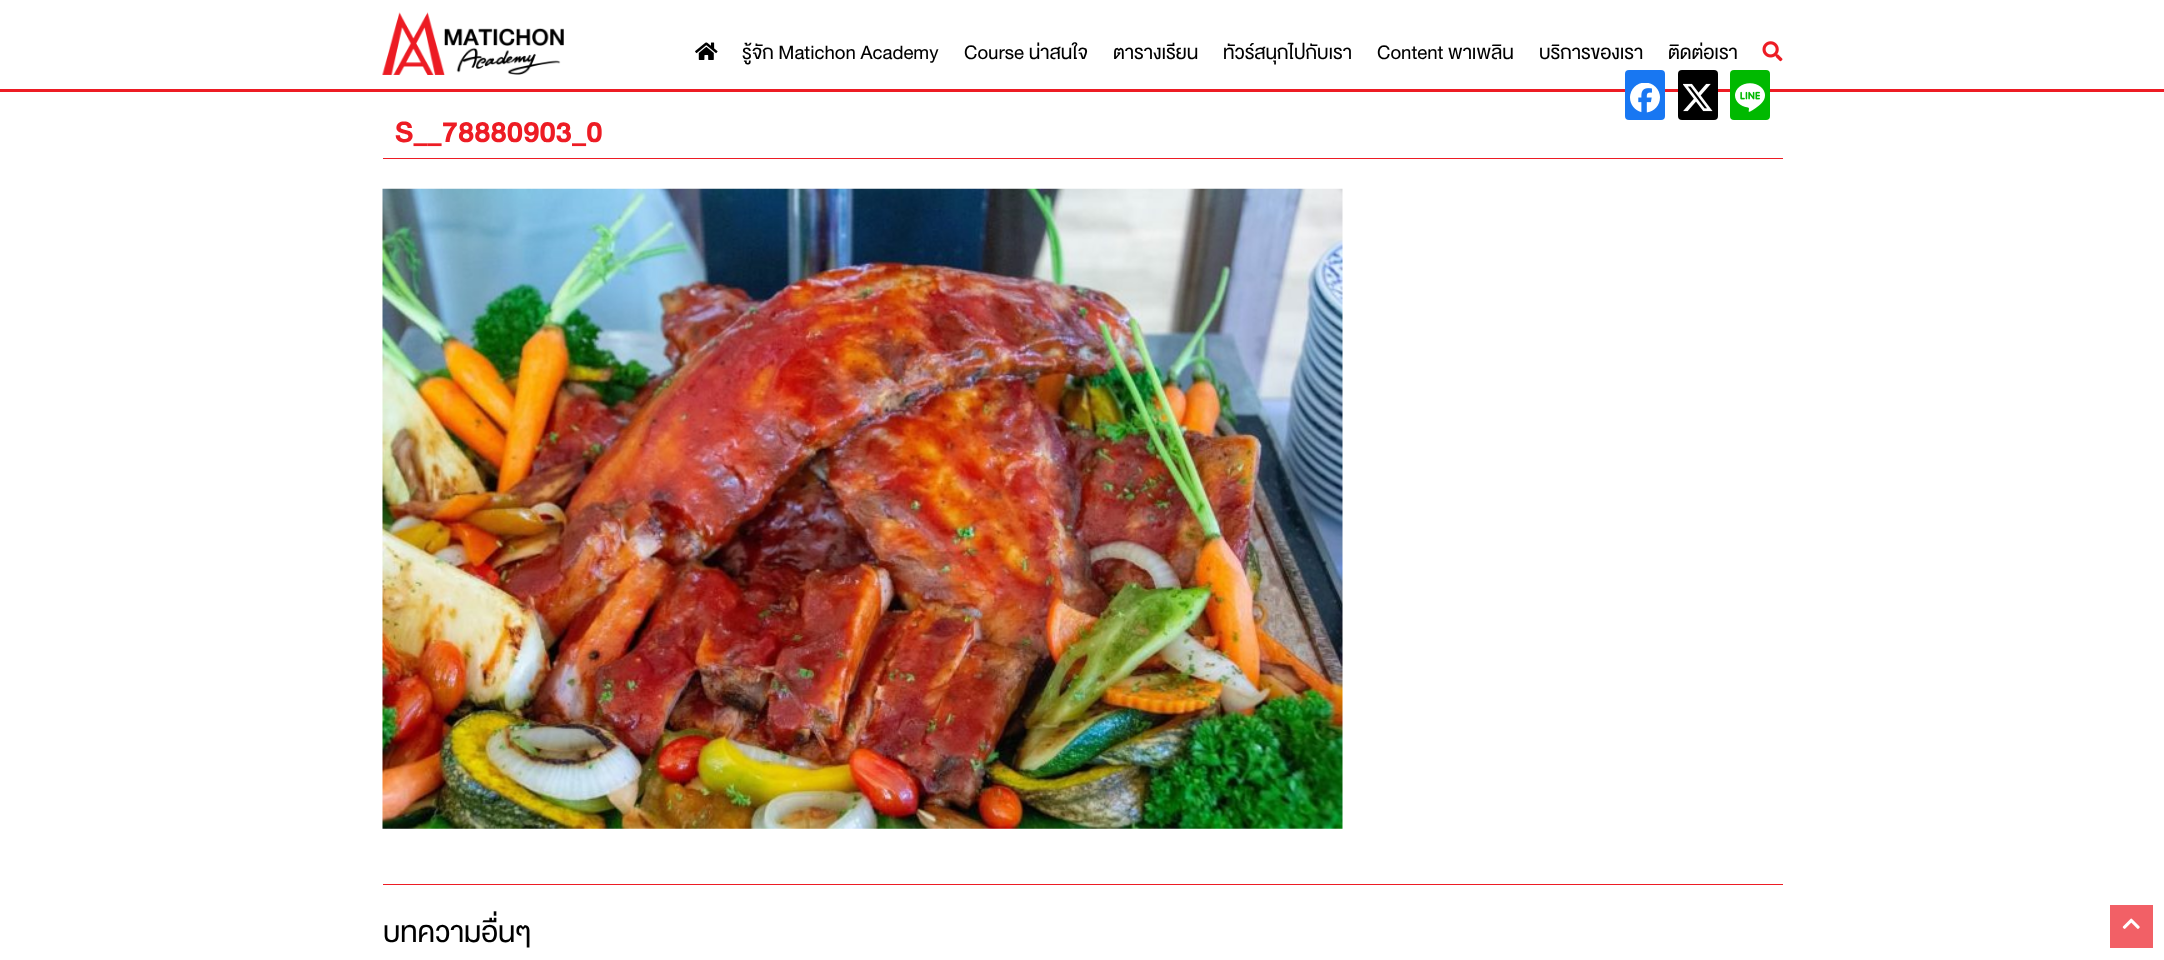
<?xml version="1.0" encoding="UTF-8"?>
<svg xmlns="http://www.w3.org/2000/svg" xmlns:xlink="http://www.w3.org/1999/xlink" width="2164" height="960">
  <rect width="100%" height="100%" fill="#ffffff" />
  <rect y="89" width="2164" height="3" fill="#ed1c24" />
  <image x="382" y="12" width="182" height="63" xlink:href="image1.png" />
  <image x="695" y="42" width="23" height="18" xlink:href="image2.png" />
  <image x="1762" y="41" width="21" height="21" xlink:href="image3.png" />
  <rect x="383" y="158" width="1400" height="1" fill="#ed1c24" />
  <rect x="1625" y="70" width="40" height="50" rx="4" fill="#1877f2" />
  <image x="1630" y="83" width="30" height="30" xlink:href="image4.png" />
  <rect x="1678" y="70" width="40" height="50" rx="4" fill="#000000" />
  <image x="1683" y="83" width="30" height="29" xlink:href="image5.png" />
  <rect x="1730" y="70" width="40" height="50" rx="4" fill="#00b900" />
  <image x="1735" y="83" width="30" height="29" xlink:href="image6.png" />
  <image x="382" y="188" width="961" height="641" xlink:href="image7.png" />
  <rect x="383" y="884" width="1400" height="1" fill="#ed1c24" />
  <rect x="2110" y="905" width="43" height="43" fill="#f26066" />
  <image x="2122" y="918" width="18" height="11" xlink:href="image8.png" />
  <text x="742" y="59" style="font-family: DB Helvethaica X; font-size: 20px; fill: #000000">รู้จัก Matichon Academy</text>
  <text x="964" y="59" style="font-family: DB Helvethaica X; font-size: 20px; fill: #000000">Course น่าสนใจ</text>
  <text x="1113" y="59" style="font-family: DB Helvethaica X; font-size: 20px; fill: #000000">ตารางเรียน</text>
  <text x="1223" y="59" style="font-family: DB Helvethaica X; font-size: 20px; fill: #000000">ทัวร์สนุกไปกับเรา</text>
  <text x="1377" y="59" style="font-family: DB Helvethaica X; font-size: 20px; fill: #000000">Content พาเพลิน</text>
  <text x="1539" y="59" style="font-family: DB Helvethaica X; font-size: 20px; fill: #000000">บริการของเรา</text>
  <text x="1668" y="59" style="font-family: DB Helvethaica X; font-size: 20px; fill: #000000">ติดต่อเรา</text>
  <text x="395" y="142" style="font-family: DB Helvethaica X; font-size: 30px; font-weight: bold; fill: #ed1c24">S__78880903_0</text>
  <text x="383" y="942" style="font-family: DB Helvethaica X; font-size: 30px; fill: #000000">บทความอื่นๆ</text>
</svg>
